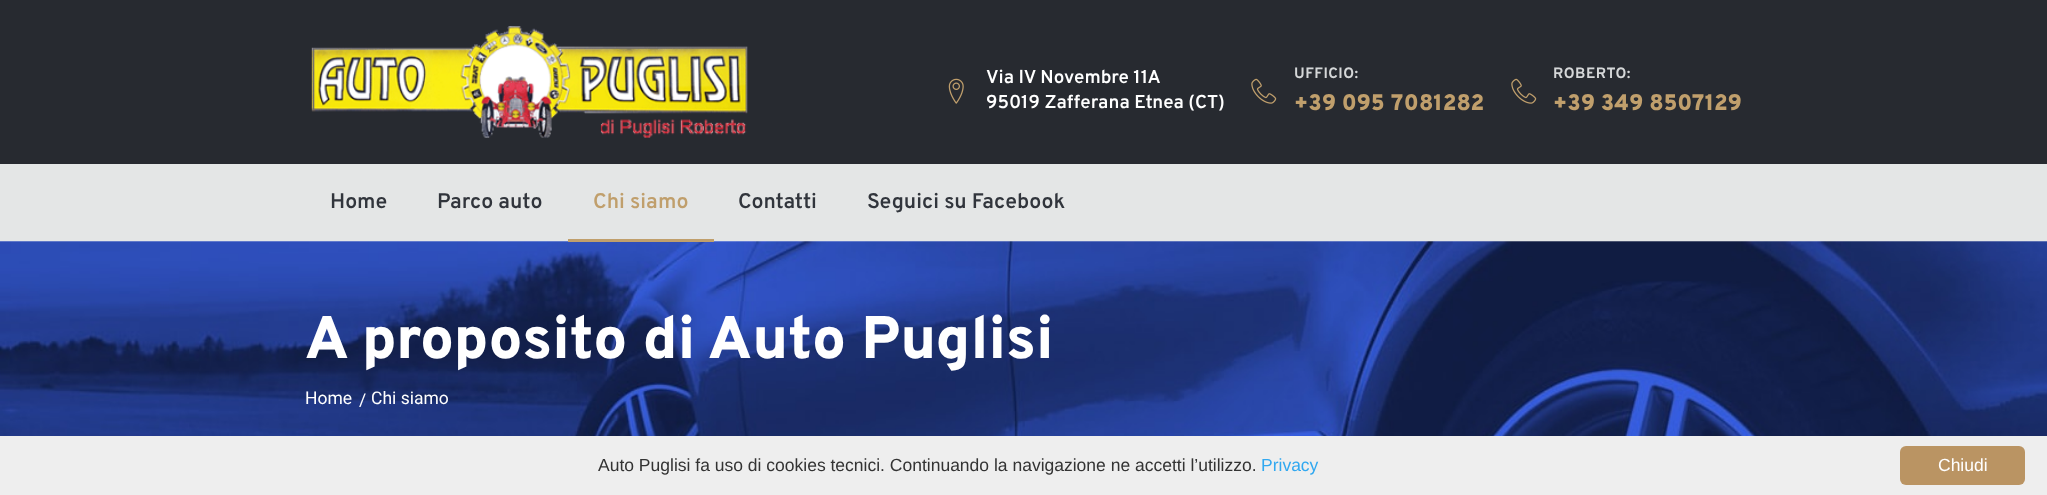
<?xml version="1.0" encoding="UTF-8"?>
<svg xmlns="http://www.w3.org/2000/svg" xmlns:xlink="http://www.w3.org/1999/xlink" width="2047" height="495">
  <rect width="100%" height="100%" fill="#ffffff" />
  <rect width="2047" height="164" fill="#272a30" />
  <image x="311" y="26" width="437" height="112" xlink:href="image1.png" />
  <image x="948" y="78" width="16" height="26" xlink:href="image2.png" />
  <image x="1251" y="78" width="26" height="26" xlink:href="image3.png" />
  <image x="1511" y="78" width="26" height="26" xlink:href="image3.png" />
  <rect y="164" width="2047" height="77" fill="#e4e6e6" />
  <image x="0" y="241" width="2047" height="195" xlink:href="image4.png" />
  <rect x="568" y="239" width="146" height="3" fill="#c09f6c" />
  <rect y="436" width="2047" height="59" fill="#eeeeee" />
  <rect x="1900" y="446" width="125" height="39" rx="6" fill="#ba9463" />
  <text x="986" y="83" style="font-family: Overpass; font-size: 18.75px; font-weight: 600; fill: #ffffff">Via IV Novembre 11A</text>
  <text x="986" y="108" style="font-family: Overpass; font-size: 18.75px; font-weight: 600; fill: #ffffff">95019 Zafferana Etnea (CT)</text>
  <text x="1294" y="78" style="font-family: Overpass; font-size: 15px; font-weight: bold; letter-spacing: 0.5px; fill: #d5d7d8">UFFICIO:</text>
  <text x="1294" y="110" style="font-family: Overpass; font-size: 22.5px; font-weight: 900; fill: #c09f6c">+39 095 7081282</text>
  <text x="1553" y="78" style="font-family: Overpass; font-size: 15px; font-weight: bold; letter-spacing: 0.5px; fill: #d5d7d8">ROBERTO:</text>
  <text x="1553" y="110" style="font-family: Overpass; font-size: 22.5px; font-weight: 900; fill: #c09f6c">+39 349 8507129</text>
  <text x="330" y="208" style="font-family: Overpass; font-size: 21.25px; font-weight: 600; fill: #31353c">Home</text>
  <text x="437" y="208" style="font-family: Overpass; font-size: 21.25px; font-weight: 600; fill: #31353c">Parco auto</text>
  <text x="593" y="208" style="font-family: Overpass; font-size: 21.25px; font-weight: 600; fill: #c09f6c">Chi siamo</text>
  <text x="738" y="208" style="font-family: Overpass; font-size: 21.25px; font-weight: 600; fill: #31353c">Contatti</text>
  <text x="867" y="208" style="font-family: Overpass; font-size: 21.25px; font-weight: 600; fill: #31353c">Seguici su Facebook</text>
  <text x="305" y="358" style="font-family: Overpass; font-size: 60px; font-weight: 800; fill: #ffffff">A proposito di Auto Puglisi</text>
  <text x="305" y="404" style="font-family: Roboto; font-size: 17.5px; fill: #ffffff">Home</text>
  <text x="359" y="406" style="font-family: Roboto; font-size: 17.5px; fill: #ffffff">/</text>
  <text x="371" y="404" style="font-family: Roboto; font-size: 17.5px; fill: #ffffff">Chi siamo</text>
  <text x="598" y="471" style="font-family: Liberation Sans; font-size: 17.5px; fill: #333333">Auto Puglisi fa uso di cookies tecnici. Continuando la navigazione ne accetti l’utilizzo.</text>
  <text x="1261" y="471" style="font-family: Liberation Sans; font-size: 17.5px; fill: #31a8f0">Privacy</text>
  <text x="1938" y="471" style="font-family: Liberation Sans; font-size: 17.5px; fill: #ffffff">Chiudi</text>
</svg>
